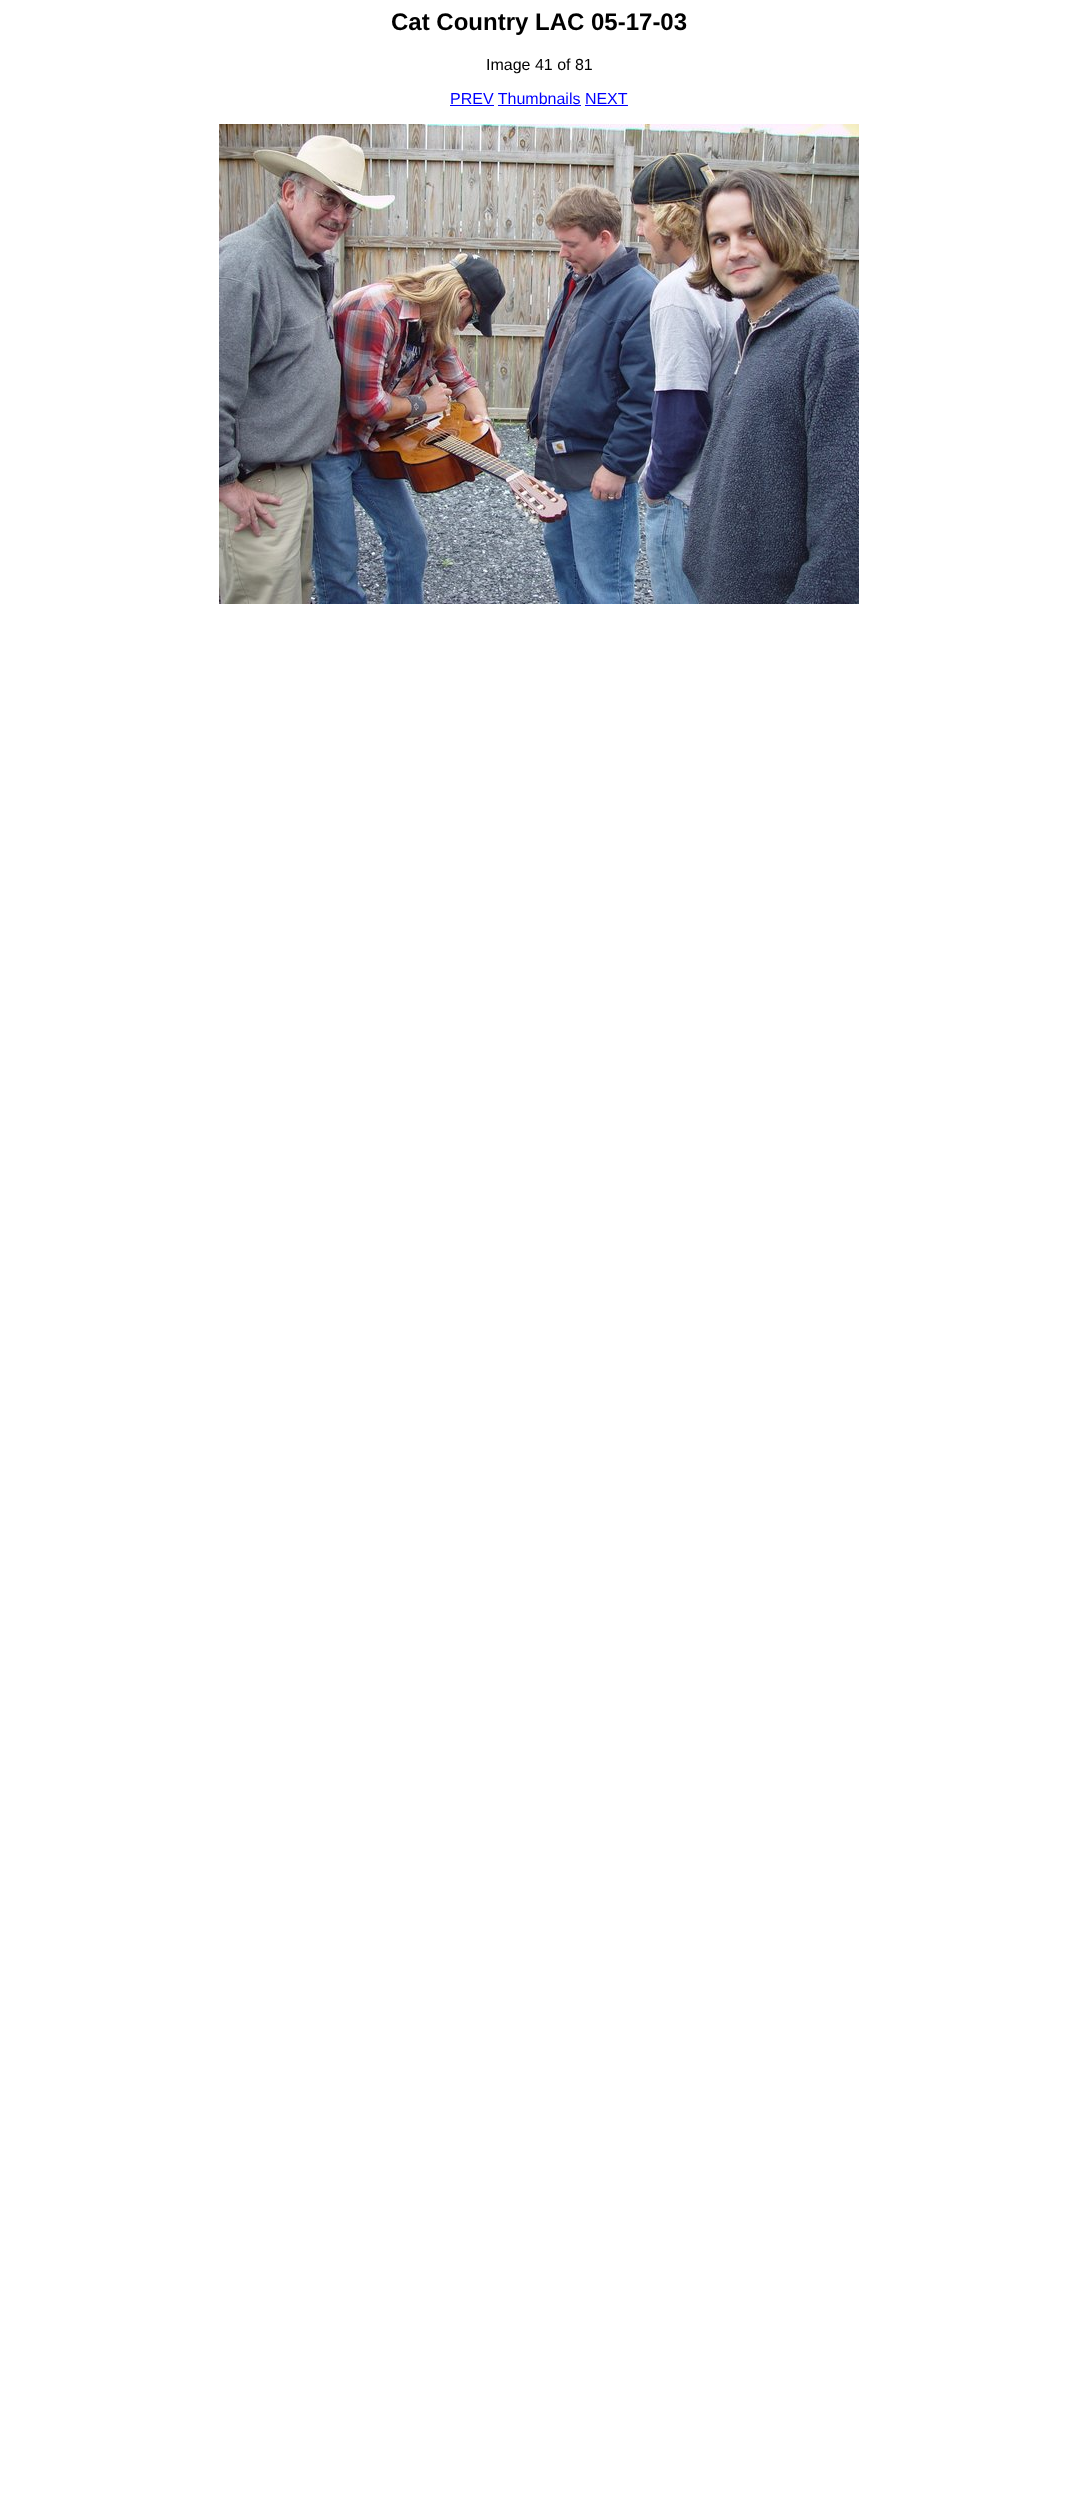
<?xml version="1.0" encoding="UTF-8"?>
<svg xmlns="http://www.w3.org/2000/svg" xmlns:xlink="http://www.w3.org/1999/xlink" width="1078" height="2497">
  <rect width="100%" height="100%" fill="#ffffff" />
  <rect x="450" y="105" width="44" height="1" fill="#0000ff" />
  <rect x="498" y="105" width="83" height="1" fill="#0000ff" />
  <rect x="585" y="105" width="43" height="1" fill="#0000ff" />
  <image x="219" y="124" width="640" height="480" xlink:href="image1.png" />
  <text x="391" y="30" style="font-family: Liberation Sans; font-size: 24px; font-weight: bold; fill: #000000">Cat Country LAC 05-17-03</text>
  <text x="486" y="70" style="font-family: Liberation Sans; font-size: 16px; fill: #000000">Image 41 of 81</text>
  <text x="450" y="104" style="font-family: Liberation Sans; font-size: 16px; fill: #0000ff">PREV Thumbnails NEXT</text>
</svg>
